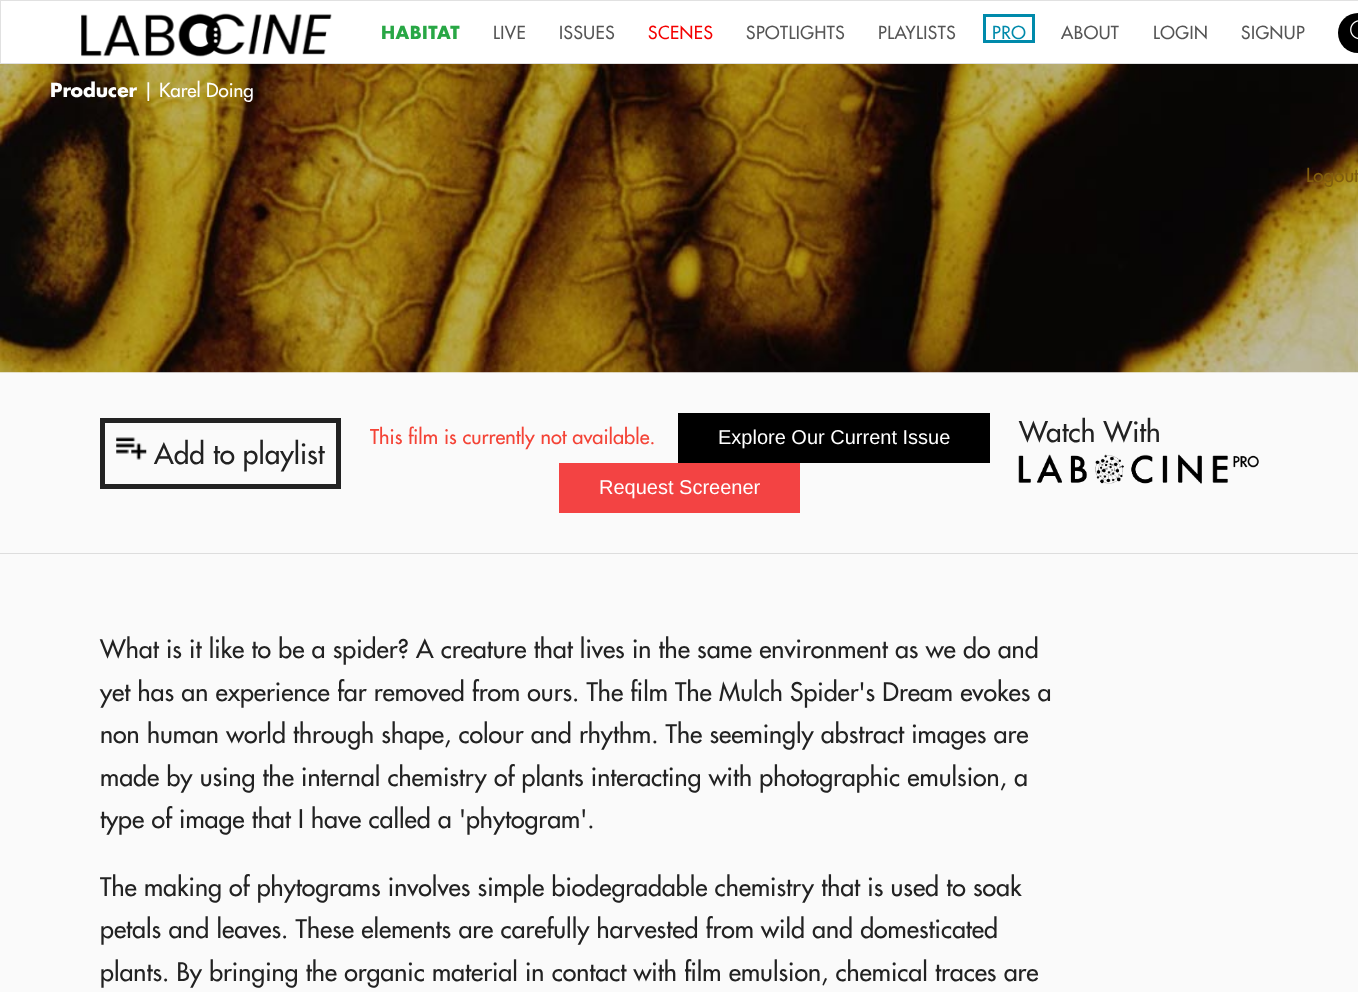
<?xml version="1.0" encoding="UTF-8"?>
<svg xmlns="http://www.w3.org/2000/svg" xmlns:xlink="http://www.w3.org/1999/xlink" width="1358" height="992">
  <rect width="100%" height="100%" fill="#fafafa" />
  <image x="0" y="64" width="1358" height="309" xlink:href="image1.png" />
  <rect x="0.5" y="0.5" width="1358" height="63" fill="#ffffff" stroke="#e1e1e1" />
  <image x="81" y="13" width="251" height="44" xlink:href="image2.png" />
  <rect x="984.5" y="15.5" width="49" height="26" fill="none" stroke="#008aab" stroke-width="3" />
  <circle cx="1358" cy="33" r="20" fill="#000000" />
  <image x="1350" y="20" width="8" height="20" xlink:href="image3.png" />
  <rect y="553" width="1358" height="1" fill="#dddddd" />
  <rect x="102.5" y="420.5" width="236" height="66" fill="none" stroke="#222222" stroke-width="5" />
  <image x="116" y="437" width="31" height="23" xlink:href="image4.png" />
  <rect x="678" y="413" width="312" height="50" fill="#000000" />
  <rect x="559" y="463" width="241" height="50" fill="#f34343" />
  <image x="1018" y="454" width="241" height="30" xlink:href="image5.png" />
  <text x="50" y="97" style="font-family: Futura; font-size: 18.75px; font-weight: bold; fill: #ffffff">Producer</text>
  <text x="143" y="97" style="font-family: Futura; font-size: 18.75px; font-weight: 500; fill: #ffffff">| Karel Doing</text>
  <text x="381" y="39" style="font-family: Futura; font-size: 17.5px; font-weight: bold; letter-spacing: 0.5px; fill: #28a745">HABITAT</text>
  <text x="493" y="39" style="font-family: Futura; font-size: 17.5px; font-weight: 500; letter-spacing: 0.5px; fill: #555555">LIVE</text>
  <text x="559" y="39" style="font-family: Futura; font-size: 17.5px; font-weight: 500; letter-spacing: 0.5px; fill: #555555">ISSUES</text>
  <text x="648" y="39" style="font-family: Futura; font-size: 17.5px; font-weight: 500; letter-spacing: 0.5px; fill: #f40000">SCENES</text>
  <text x="746" y="39" style="font-family: Futura; font-size: 17.5px; font-weight: 500; letter-spacing: 0.5px; fill: #555555">SPOTLIGHTS</text>
  <text x="878" y="39" style="font-family: Futura; font-size: 17.5px; font-weight: 500; letter-spacing: 0.5px; fill: #555555">PLAYLISTS</text>
  <text x="992" y="39" style="font-family: Futura; font-size: 17.5px; font-weight: 500; letter-spacing: 0.5px; fill: #008aab">PRO</text>
  <text x="1061" y="39" style="font-family: Futura; font-size: 17.5px; font-weight: 500; letter-spacing: 0.5px; fill: #555555">ABOUT</text>
  <text x="1153" y="39" style="font-family: Futura; font-size: 17.5px; font-weight: 500; letter-spacing: 0.5px; fill: #555555">LOGIN</text>
  <text x="1241" y="39" style="font-family: Futura; font-size: 17.5px; font-weight: 500; letter-spacing: 0.5px; fill: #555555">SIGNUP</text>
  <text x="1306" y="182" style="font-family: Futura; font-size: 19px; font-weight: 500; fill: #815e0e">Logout</text>
  <text x="154" y="464" style="font-family: Futura; font-size: 28px; font-weight: 500; fill: #222222">Add to playlist</text>
  <text x="370" y="444" style="font-family: Futura; font-size: 20px; font-weight: 500; fill: #f44336">This film is currently not available.</text>
  <text x="718" y="444" style="font-family: Liberation Sans; font-size: 20px; fill: #ffffff">Explore Our Current Issue</text>
  <text x="599" y="494" style="font-family: Liberation Sans; font-size: 20px; fill: #ffffff">Request Screener</text>
  <text x="1019" y="442" style="font-family: Futura; font-size: 28px; font-weight: 500; fill: #222222">Watch With</text>
  <text x="100" y="658" style="font-family: Futura; font-size: 25px; font-weight: 500; fill: #222222">What is it like to be a spider? A creature that lives in the same environment as we do and</text>
  <text x="100" y="701" style="font-family: Futura; font-size: 25px; font-weight: 500; fill: #222222">yet has an experience far removed from ours. The film The Mulch Spider's Dream evokes a</text>
  <text x="100" y="743" style="font-family: Futura; font-size: 25px; font-weight: 500; fill: #222222">non human world through shape, colour and rhythm. The seemingly abstract images are</text>
  <text x="100" y="786" style="font-family: Futura; font-size: 25px; font-weight: 500; fill: #222222">made by using the internal chemistry of plants interacting with photographic emulsion, a</text>
  <text x="100" y="828" style="font-family: Futura; font-size: 25px; font-weight: 500; fill: #222222">type of image that I have called a 'phytogram'.</text>
  <text x="100" y="896" style="font-family: Futura; font-size: 25px; font-weight: 500; fill: #222222">The making of phytograms involves simple biodegradable chemistry that is used to soak</text>
  <text x="100" y="938" style="font-family: Futura; font-size: 25px; font-weight: 500; fill: #222222">petals and leaves. These elements are carefully harvested from wild and domesticated</text>
  <text x="100" y="981" style="font-family: Futura; font-size: 25px; font-weight: 500; fill: #222222">plants. By bringing the organic material in contact with film emulsion, chemical traces are</text>
</svg>
